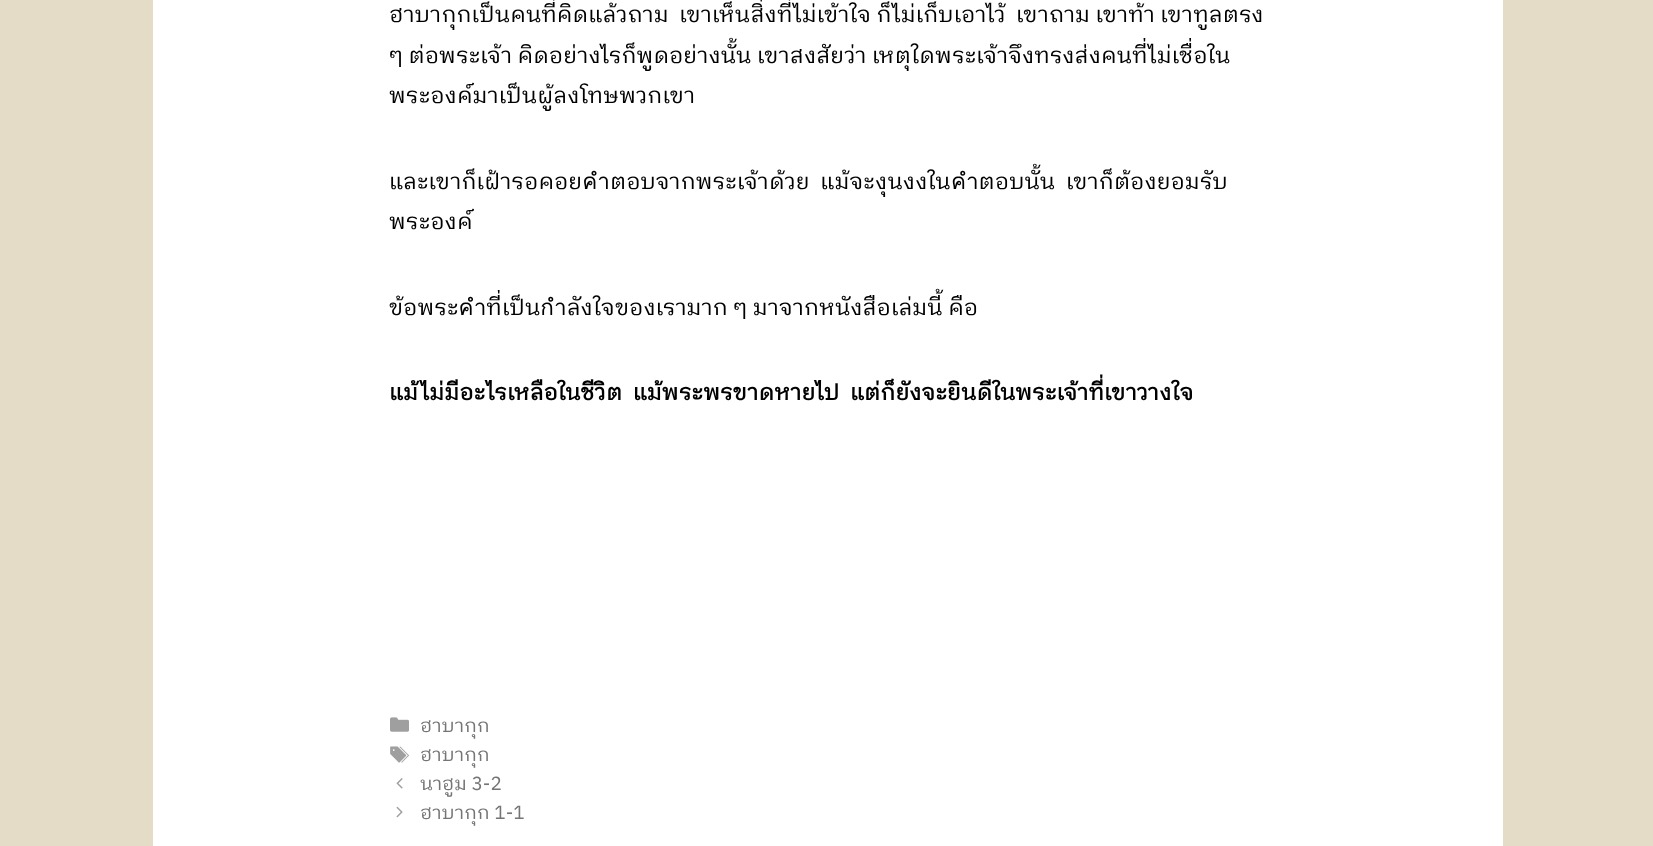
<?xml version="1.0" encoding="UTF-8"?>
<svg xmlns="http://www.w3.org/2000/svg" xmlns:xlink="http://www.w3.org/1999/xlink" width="1653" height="846">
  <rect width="100%" height="100%" fill="#e5dcc7" />
  <rect x="153" width="1350" height="846" fill="#ffffff" />
  <image x="390" y="717" width="19" height="15" xlink:href="image1.png" />
  <image x="390" y="746" width="19" height="17" xlink:href="image2.png" />
  <image x="396" y="778" width="7" height="11" xlink:href="image3.png" />
  <image x="396" y="806" width="7" height="12" xlink:href="image4.png" />
  <text x="389" y="22" style="font-family: IBM Plex Sans Thai Looped; font-size: 22.5px; fill: #000000" xml:space="preserve">ฮาบากุกเป็นคนที่คิดแล้วถาม  เขาเห็นสิ่งที่ไม่เข้าใจ ก็ไม่เก็บเอาไว้  เขาถาม เขาท้า เขาทูลตรง</text>
  <text x="389" y="63" style="font-family: IBM Plex Sans Thai Looped; font-size: 22.5px; fill: #000000">ๆ ต่อพระเจ้า คิดอย่างไรก็พูดอย่างนั้น เขาสงสัยว่า เหตุใดพระเจ้าจึงทรงส่งคนที่ไม่เชื่อใน</text>
  <text x="389" y="103" style="font-family: IBM Plex Sans Thai Looped; font-size: 22.5px; fill: #000000">พระองค์มาเป็นผู้ลงโทษพวกเขา</text>
  <text x="389" y="189" style="font-family: IBM Plex Sans Thai Looped; font-size: 22.5px; fill: #000000" xml:space="preserve">และเขาก็เฝ้ารอคอยคำตอบจากพระเจ้าด้วย  แม้จะงุนงงในคำตอบนั้น  เขาก็ต้องยอมรับ</text>
  <text x="389" y="229" style="font-family: IBM Plex Sans Thai Looped; font-size: 22.5px; fill: #000000">พระองค์</text>
  <text x="389" y="315" style="font-family: IBM Plex Sans Thai Looped; font-size: 22.5px; fill: #000000">ข้อพระคำที่เป็นกำลังใจของเรามาก ๆ มาจากหนังสือเล่มนี้ คือ</text>
  <text x="389" y="400" style="font-family: IBM Plex Sans Thai Looped; font-size: 22.5px; font-weight: bold; fill: #000000" xml:space="preserve">แม้ไม่มีอะไรเหลือในชีวิต  แม้พระพรขาดหายไป  แต่ก็ยังจะยินดีในพระเจ้าที่เขาวางใจ</text>
  <text x="420" y="732" style="font-family: IBM Plex Sans Thai Looped; font-size: 19px; fill: #757575">ฮาบากุก</text>
  <text x="420" y="761" style="font-family: IBM Plex Sans Thai Looped; font-size: 19px; fill: #757575">ฮาบากุก</text>
  <text x="420" y="790" style="font-family: IBM Plex Sans Thai Looped; font-size: 19px; fill: #757575">นาฮูม 3-2</text>
  <text x="420" y="819" style="font-family: IBM Plex Sans Thai Looped; font-size: 19px; fill: #757575">ฮาบากุก 1-1</text>
</svg>
